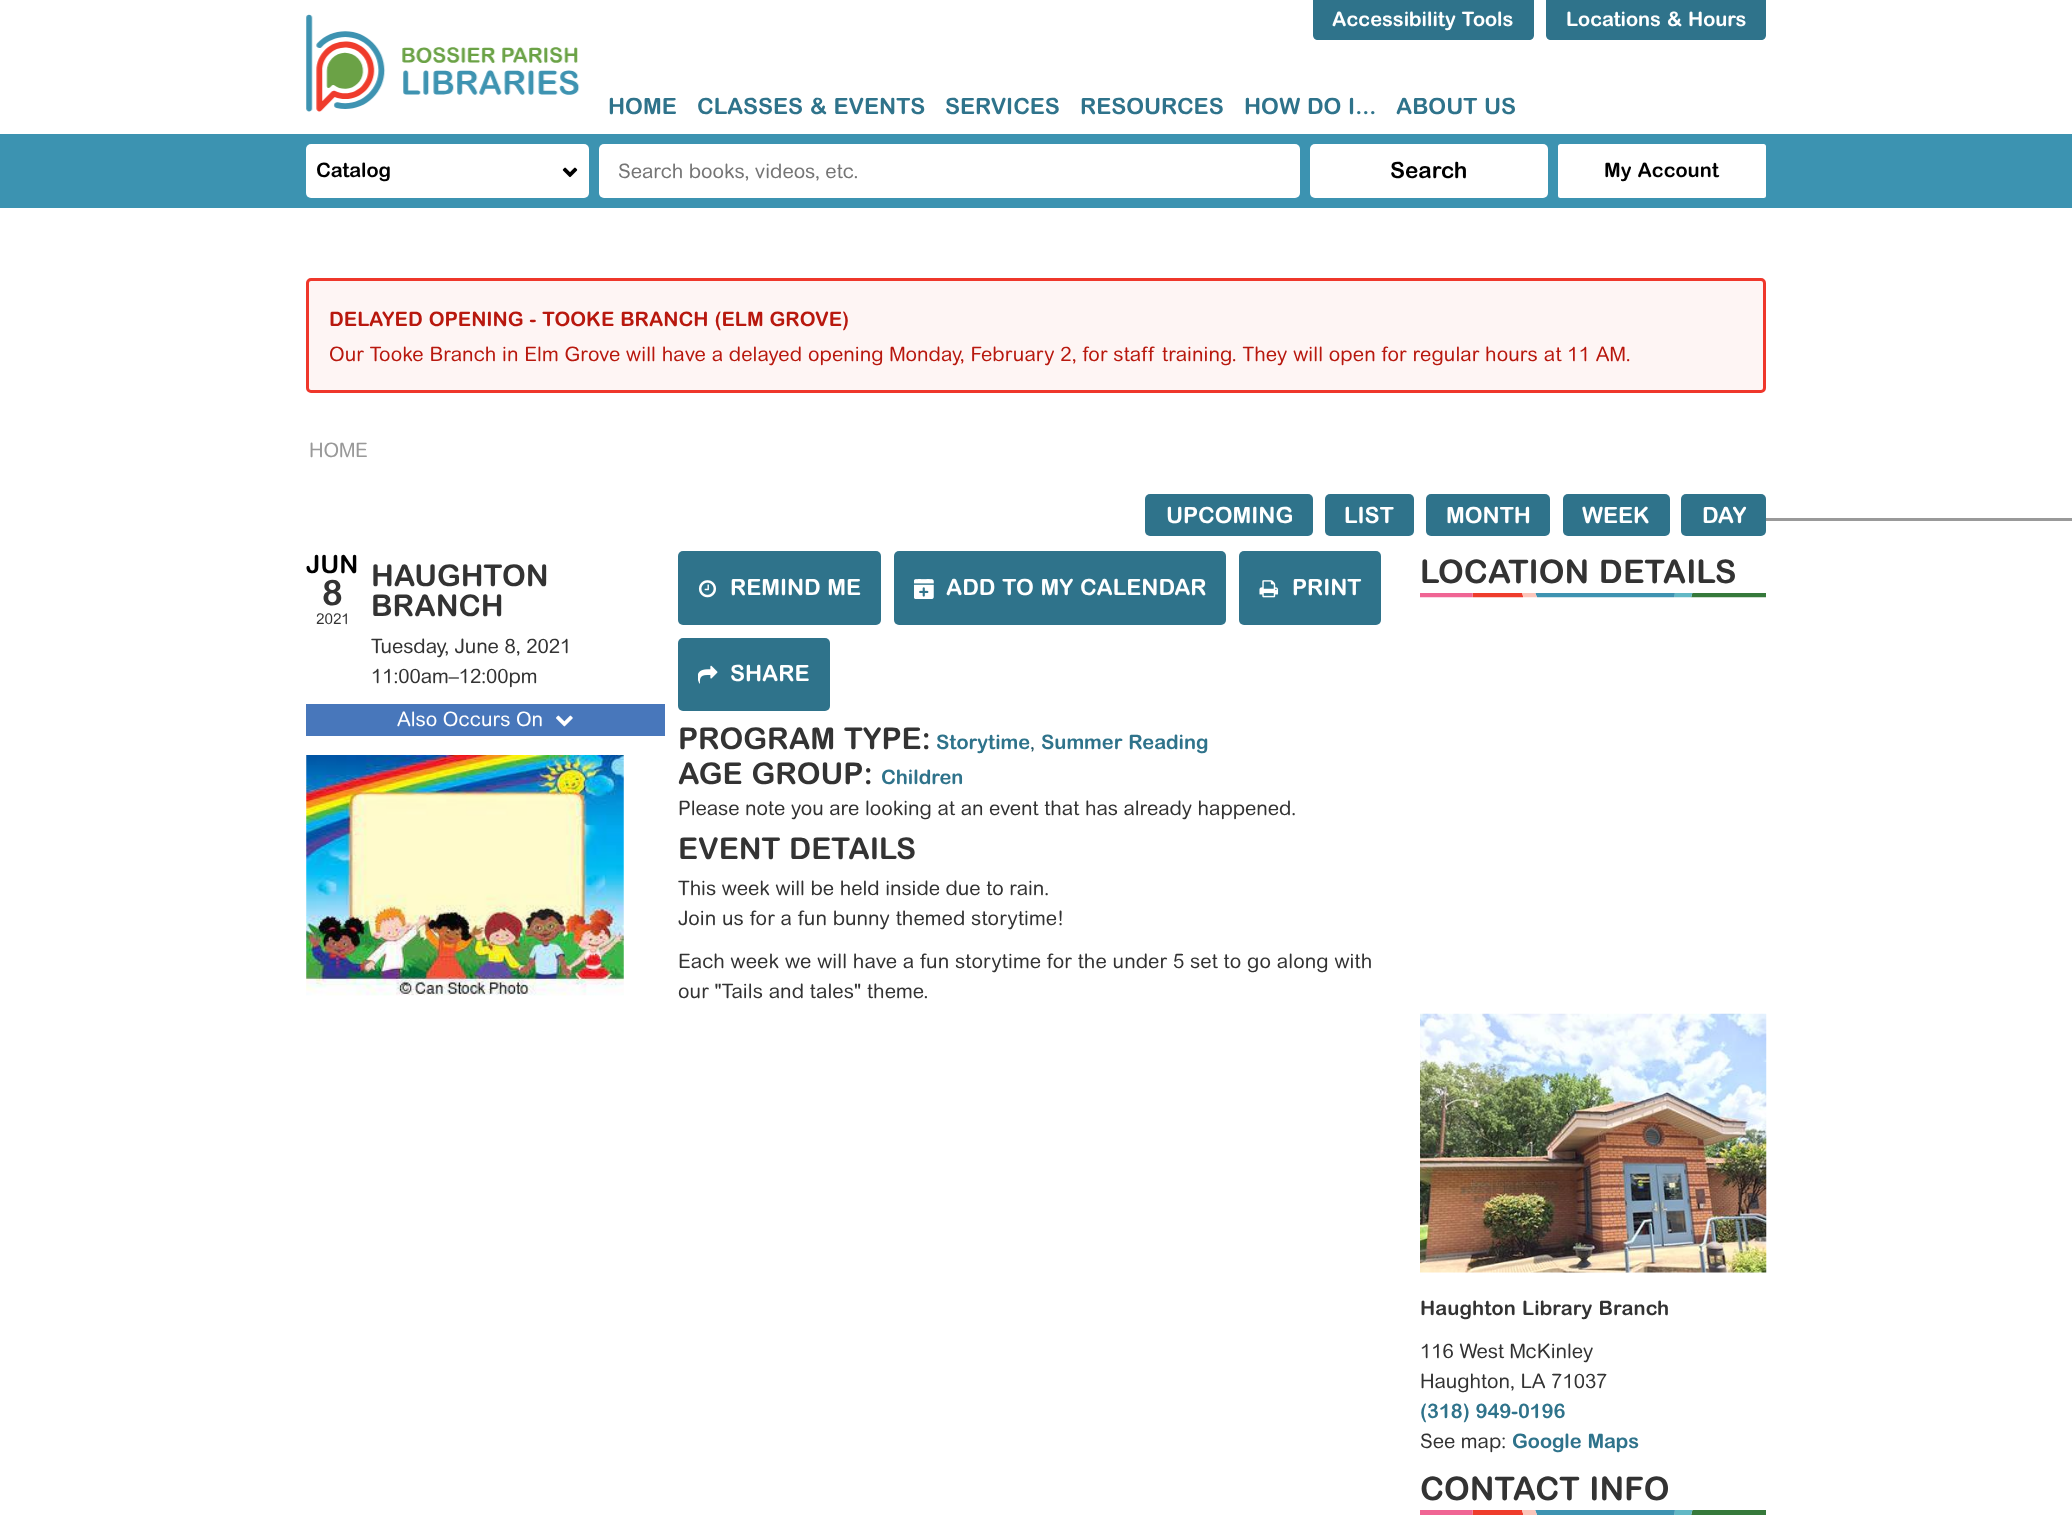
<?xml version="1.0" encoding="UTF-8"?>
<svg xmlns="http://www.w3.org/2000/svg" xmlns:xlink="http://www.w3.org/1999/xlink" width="2072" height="1516">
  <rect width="100%" height="100%" fill="#ffffff" />
  <image x="306" y="14" width="274" height="98" xlink:href="image1.png" />
  <path d="M 1313 0 h 221 v 35 c 0 3 -2 5 -5 5 h -211 c -3 0 -5 -2 -5 -5 z" fill="#2f738b" />
  <path d="M 1546 0 h 220 v 35 c 0 3 -2 5 -5 5 h -210 c -3 0 -5 -2 -5 -5 z" fill="#2f738b" />
  <rect y="134" width="2072" height="74" fill="#3c93b1" />
  <rect x="306" y="144" width="283" height="54" rx="5" fill="#ffffff" />
  <image x="562" y="167" width="16" height="11" xlink:href="image2.png" />
  <rect x="599" y="144" width="701" height="54" rx="5" fill="#ffffff" />
  <rect x="1310" y="144" width="238" height="54" rx="5" fill="#ffffff" />
  <rect x="1558" y="144" width="208" height="54" rx="2.5" fill="#ffffff" />
  <rect x="307.5" y="279.5" width="1457" height="112" rx="3.5" fill="#fef5f4" stroke="#ef372b" stroke-width="3" />
  <rect x="1145" y="494" width="168" height="42" rx="5" fill="#2f738b" />
  <rect x="1325" y="494" width="89" height="42" rx="5" fill="#2f738b" />
  <rect x="1426" y="494" width="124" height="42" rx="5" fill="#2f738b" />
  <rect x="1563" y="494" width="107" height="42" rx="5" fill="#2f738b" />
  <rect x="1681" y="494" width="85" height="42" rx="5" fill="#2f738b" />
  <rect x="1766" y="518" width="306" height="3" fill="#999999" />
  <rect x="306" y="704" width="359" height="32" fill="#4877bb" />
  <image x="556" y="715" width="17" height="12" xlink:href="image3.png" />
  <image x="306" y="755" width="318" height="241" xlink:href="image4.png" />
  <rect x="678" y="551" width="203" height="74" rx="5" fill="#2f738b" />
  <image x="698" y="580" width="19" height="18" xlink:href="image5.png" />
  <rect x="894" y="551" width="332" height="74" rx="5" fill="#2f738b" />
  <image x="914" y="579" width="20" height="20" xlink:href="image6.png" />
  <rect x="1239" y="551" width="142" height="74" rx="5" fill="#2f738b" />
  <image x="1259" y="580" width="20" height="18" xlink:href="image7.png" />
  <rect x="678" y="638" width="152" height="73" rx="5" fill="#2f738b" />
  <image x="698" y="665" width="20" height="19" xlink:href="image8.png" />
  <image x="1420" y="593" width="346" height="5" xlink:href="image9.png" />
  <image x="1420" y="1013" width="347" height="260" xlink:href="image10.png" />
  <image x="1420" y="1510" width="346" height="5" xlink:href="image11.png" />
  <text x="1332" y="26" style="font-family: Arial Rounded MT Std; font-size: 20px; font-weight: bold; fill: #ffffff">Accessibility Tools</text>
  <text x="1566" y="26" style="font-family: Arial Rounded MT Std; font-size: 20px; font-weight: bold; fill: #ffffff">Locations &amp; Hours</text>
  <text x="608" y="114" style="font-family: Arial Rounded MT Std; font-size: 22.5px; font-weight: bold; fill: #2f738b">HOME</text>
  <text x="697" y="114" style="font-family: Arial Rounded MT Std; font-size: 22.5px; font-weight: bold; fill: #2f738b">CLASSES &amp; EVENTS</text>
  <text x="945" y="114" style="font-family: Arial Rounded MT Std; font-size: 22.5px; font-weight: bold; fill: #2f738b">SERVICES</text>
  <text x="1080" y="114" style="font-family: Arial Rounded MT Std; font-size: 22.5px; font-weight: bold; fill: #2f738b">RESOURCES</text>
  <text x="1244" y="114" style="font-family: Arial Rounded MT Std; font-size: 22.5px; font-weight: bold; fill: #2f738b">HOW DO I...</text>
  <text x="1396" y="114" style="font-family: Arial Rounded MT Std; font-size: 22.5px; font-weight: bold; fill: #2f738b">ABOUT US</text>
  <text x="316" y="177" style="font-family: Arial Rounded MT Std; font-size: 20px; font-weight: bold; fill: #000000">Catalog</text>
  <text x="618" y="178" style="font-family: Arial Rounded MT Std; font-size: 20px; font-weight: 500; fill: #757575">Search books, videos, etc.</text>
  <text x="1390" y="178" style="font-family: Arial Rounded MT Std; font-size: 22.5px; font-weight: bold; fill: #000000">Search</text>
  <text x="1604" y="177" style="font-family: Arial Rounded MT Std; font-size: 20px; font-weight: bold; fill: #000000">My Account</text>
  <text x="329" y="326" style="font-family: Arial Rounded MT Std; font-size: 20px; font-weight: bold; fill: #b8180e">DELAYED OPENING - TOOKE BRANCH (ELM GROVE)</text>
  <text x="329" y="361" style="font-family: Arial Rounded MT Std; font-size: 20px; font-weight: 500; letter-spacing: 0.12px; fill: #b8180e">Our Tooke Branch in Elm Grove will have a delayed opening Monday, February 2, for staff training. They will open for regular hours at 11 AM.</text>
  <text x="309" y="457" style="font-family: Arial Rounded MT Std; font-size: 20px; font-weight: 500; fill: #999999">HOME</text>
  <text x="1166" y="523" style="font-family: Arial Rounded MT Std; font-size: 22.5px; font-weight: bold; fill: #ffffff">UPCOMING</text>
  <text x="1344" y="523" style="font-family: Arial Rounded MT Std; font-size: 22.5px; font-weight: bold; fill: #ffffff">LIST</text>
  <text x="1446" y="523" style="font-family: Arial Rounded MT Std; font-size: 22.5px; font-weight: bold; fill: #ffffff">MONTH</text>
  <text x="1582" y="523" style="font-family: Arial Rounded MT Std; font-size: 22.5px; font-weight: bold; fill: #ffffff">WEEK</text>
  <text x="1702" y="523" style="font-family: Arial Rounded MT Std; font-size: 22.5px; font-weight: bold; fill: #ffffff">DAY</text>
  <text x="306" y="573" style="font-family: Arial Rounded MT Std; font-size: 25px; font-weight: bold; fill: #000000">JUN</text>
  <text x="322" y="605" style="font-family: Arial Rounded MT Std; font-size: 35px; font-weight: bold; fill: #333333">8</text>
  <text x="316" y="624" style="font-family: Arial Rounded MT Std; font-size: 15px; font-weight: 500; fill: #333333">2021</text>
  <text x="371" y="586" style="font-family: Arial Rounded MT Std; font-size: 30px; font-weight: bold; fill: #333333">HAUGHTON</text>
  <text x="371" y="616" style="font-family: Arial Rounded MT Std; font-size: 30px; font-weight: bold; fill: #333333">BRANCH</text>
  <text x="371" y="653" style="font-family: Arial Rounded MT Std; font-size: 20px; font-weight: 500; fill: #333333">Tuesday, June 8, 2021</text>
  <text x="371" y="683" style="font-family: Arial Rounded MT Std; font-size: 20px; font-weight: 500; fill: #333333">11:00am–12:00pm</text>
  <text x="397" y="726" style="font-family: Arial Rounded MT Std; font-size: 20px; font-weight: 500; fill: #ffffff">Also Occurs On</text>
  <text x="730" y="595" style="font-family: Arial Rounded MT Std; font-size: 22.5px; font-weight: bold; fill: #ffffff">REMIND ME</text>
  <text x="946" y="595" style="font-family: Arial Rounded MT Std; font-size: 22.5px; font-weight: bold; fill: #ffffff">ADD TO MY CALENDAR</text>
  <text x="1292" y="595" style="font-family: Arial Rounded MT Std; font-size: 22.5px; font-weight: bold; fill: #ffffff">PRINT</text>
  <text x="730" y="681" style="font-family: Arial Rounded MT Std; font-size: 22.5px; font-weight: bold; fill: #ffffff">SHARE</text>
  <text x="678" y="749" style="font-family: Arial Rounded MT Std; font-size: 30px; font-weight: bold; fill: #333333">PROGRAM TYPE:</text>
  <text x="936" y="749" style="font-family: Arial Rounded MT Std; font-size: 20px; font-weight: bold; fill: #2f738b">Storytime</text>
  <text x="1030" y="749" style="font-family: Arial Rounded MT Std; font-size: 20px; font-weight: 500; fill: #215161">,</text>
  <text x="1041" y="749" style="font-family: Arial Rounded MT Std; font-size: 20px; font-weight: bold; fill: #2f738b">Summer Reading</text>
  <text x="678" y="784" style="font-family: Arial Rounded MT Std; font-size: 30px; font-weight: bold; fill: #333333">AGE GROUP:</text>
  <text x="881" y="784" style="font-family: Arial Rounded MT Std; font-size: 20px; font-weight: bold; fill: #2f738b">Children</text>
  <text x="678" y="815" style="font-family: Arial Rounded MT Std; font-size: 20px; font-weight: 500; fill: #333333">Please note you are looking at an event that has already happened.</text>
  <text x="678" y="859" style="font-family: Arial Rounded MT Std; font-size: 30px; font-weight: bold; fill: #333333">EVENT DETAILS</text>
  <text x="678" y="895" style="font-family: Arial Rounded MT Std; font-size: 20px; font-weight: 500; fill: #333333">This week will be held inside due to rain.</text>
  <text x="678" y="925" style="font-family: Arial Rounded MT Std; font-size: 20px; font-weight: 500; letter-spacing: 0.12px; fill: #333333">Join us for a fun bunny themed storytime!</text>
  <text x="678" y="968" style="font-family: Arial Rounded MT Std; font-size: 20px; font-weight: 500; letter-spacing: 0.12px; fill: #333333">Each week we will have a fun storytime for the under 5 set to go along with</text>
  <text x="678" y="998" style="font-family: Arial Rounded MT Std; font-size: 20px; font-weight: 500; letter-spacing: 0.12px; fill: #333333">our "Tails and tales" theme.</text>
  <text x="1420" y="583" style="font-family: Arial Rounded MT Std; font-size: 32.5px; font-weight: bold; fill: #333333">LOCATION DETAILS</text>
  <text x="1420" y="1315" style="font-family: Arial Rounded MT Std; font-size: 20px; font-weight: bold; letter-spacing: 0.12px; fill: #333333">Haughton Library Branch</text>
  <text x="1420" y="1358" style="font-family: Arial Rounded MT Std; font-size: 20px; font-weight: 500; fill: #333333">116 West McKinley</text>
  <text x="1420" y="1388" style="font-family: Arial Rounded MT Std; font-size: 20px; font-weight: 500; fill: #333333">Haughton, LA 71037</text>
  <text x="1420" y="1418" style="font-family: Arial Rounded MT Std; font-size: 20px; font-weight: bold; fill: #2f738b">(318) 949-0196</text>
  <text x="1420" y="1448" style="font-family: Arial Rounded MT Std; font-size: 20px; font-weight: 500; fill: #333333">See map:</text>
  <text x="1512" y="1448" style="font-family: Arial Rounded MT Std; font-size: 20px; font-weight: bold; fill: #2f738b">Google Maps</text>
  <text x="1420" y="1500" style="font-family: Arial Rounded MT Std; font-size: 32.5px; font-weight: bold; fill: #333333">CONTACT INFO</text>
</svg>
